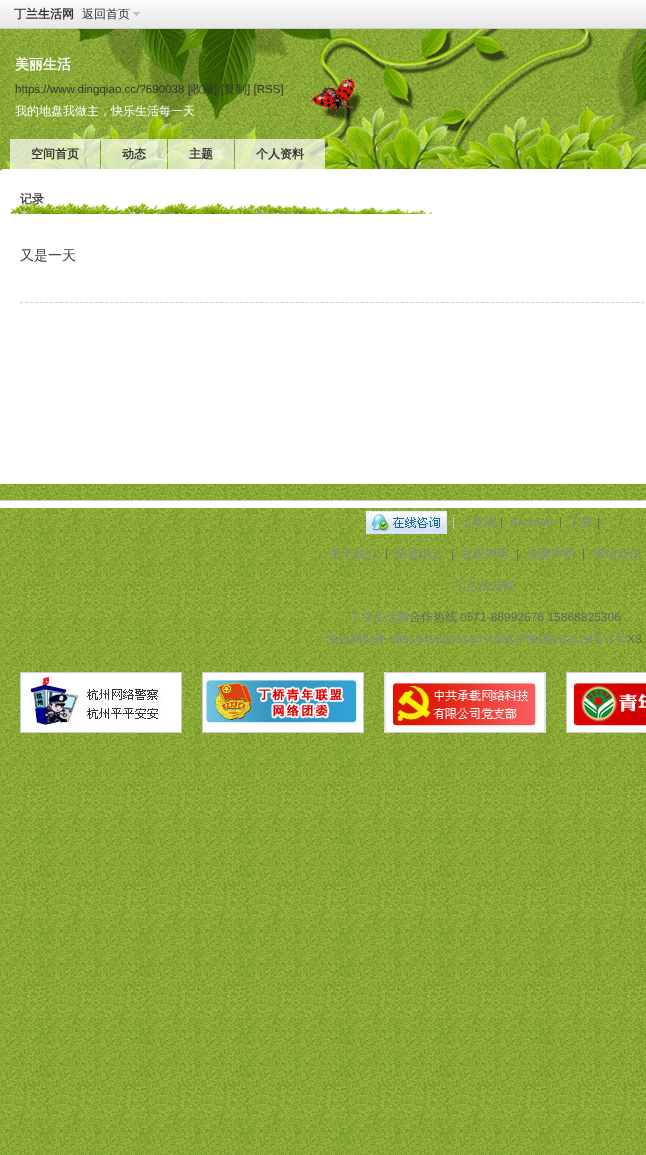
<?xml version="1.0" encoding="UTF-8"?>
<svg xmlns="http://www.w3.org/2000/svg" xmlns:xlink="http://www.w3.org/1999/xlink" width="646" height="1155">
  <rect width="100%" height="100%" fill="#ffffff" />
  <image x="0" y="484" width="646" height="671" xlink:href="image1.png" />
  <image x="0" y="0" width="646" height="28" xlink:href="image2.png" />
  <rect y="28" width="646" height="1" fill="#cdcdcd" />
  <image x="133" y="12" width="7" height="4" xlink:href="image3.png" />
  <image x="0" y="29" width="646" height="140" xlink:href="image4.png" />
  <rect x="10" y="139" width="90" height="30" fill="#ffffff" fill-opacity="0.7" />
  <rect x="101" y="139" width="66" height="30" fill="#ffffff" fill-opacity="0.7" />
  <rect x="168" y="139" width="66" height="30" fill="#ffffff" fill-opacity="0.7" />
  <rect x="235" y="139" width="90" height="30" fill="#ffffff" fill-opacity="0.7" />
  <image x="0" y="169" width="4" height="2" xlink:href="image5.png" />
  <image x="10" y="202" width="424" height="12" xlink:href="image6.png" />
  <path d="M 20 302.5 h 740" fill="none" stroke="#cdcdcd" stroke-dasharray="3 2.01" />
  <rect y="501" width="646" height="7" fill="#ffffff" />
  <rect y="500" width="646" height="1" fill="#cdcdcd" />
  <image x="366" y="511" width="81" height="23" xlink:href="image7.png" />
  <image x="20" y="672" width="162" height="61" xlink:href="image8.png" />
  <image x="202" y="672" width="162" height="61" xlink:href="image9.png" />
  <image x="384" y="672" width="162" height="61" xlink:href="image10.png" />
  <image x="566" y="672" width="80" height="61" xlink:href="image11.png" />
  <text x="14" y="18" style="font-family: WenQuanYi Zen Hei; font-size: 12px; font-weight: bold; fill: #333333">丁兰生活网</text>
  <text x="82" y="18" style="font-family: WenQuanYi Zen Hei; font-size: 12px; font-weight: 500; fill: #333333">返回首页</text>
  <text x="15" y="69" style="font-family: WenQuanYi Zen Hei; font-size: 14px; font-weight: bold; fill: #ffffff">美丽生活</text>
  <text x="15" y="93" style="font-family: Liberation Sans; font-size: 11.6px; fill: #333333">https://www.dingqiao.cc/?690038 [</text>
  <text x="191" y="93" style="font-family: WenQuanYi Zen Hei; font-size: 11.6px; font-weight: 500; fill: #333333">收藏</text>
  <text x="214" y="93" style="font-family: Liberation Sans; font-size: 11.6px; fill: #333333">] [</text>
  <text x="224" y="93" style="font-family: WenQuanYi Zen Hei; font-size: 11.6px; font-weight: 500; fill: #333333">复制</text>
  <text x="247" y="93" style="font-family: Liberation Sans; font-size: 11.6px; fill: #333333">] [RSS]</text>
  <text x="15" y="115" style="font-family: WenQuanYi Zen Hei; font-size: 12px; font-weight: 500; fill: #ffffff">我的地盘我做主，快乐生活每一天</text>
  <text x="31" y="158" style="font-family: WenQuanYi Zen Hei; font-size: 12px; font-weight: bold; fill: #333333">空间首页</text>
  <text x="122" y="158" style="font-family: WenQuanYi Zen Hei; font-size: 12px; font-weight: bold; fill: #333333">动态</text>
  <text x="189" y="158" style="font-family: WenQuanYi Zen Hei; font-size: 12px; font-weight: bold; fill: #333333">主题</text>
  <text x="256" y="158" style="font-family: WenQuanYi Zen Hei; font-size: 12px; font-weight: bold; fill: #333333">个人资料</text>
  <text x="20" y="203" style="font-family: WenQuanYi Zen Hei; font-size: 12px; font-weight: bold; fill: #444444">记录</text>
  <text x="20" y="260" style="font-family: WenQuanYi Zen Hei; font-size: 14px; font-weight: 500; fill: #444444">又是一天</text>
  <text x="452" y="526" style="font-family: Liberation Sans; font-size: 12px; fill: #cccccc">|</text>
  <text x="460" y="526" style="font-family: WenQuanYi Zen Hei; font-size: 12px; font-weight: 500; fill: #888888">小黑屋</text>
  <text x="500" y="526" style="font-family: Liberation Sans; font-size: 12px; fill: #666666">|</text>
  <text x="510" y="526" style="font-family: Liberation Sans; font-size: 12px; fill: #888888">Archiver</text>
  <text x="559" y="526" style="font-family: Liberation Sans; font-size: 12px; fill: #666666">|</text>
  <text x="569" y="526" style="font-family: WenQuanYi Zen Hei; font-size: 12px; font-weight: 500; fill: #888888">丁桥</text>
  <text x="597" y="526" style="font-family: Liberation Sans; font-size: 12px; fill: #666666">|</text>
  <text x="329" y="558" style="font-family: WenQuanYi Zen Hei; font-size: 12px; font-weight: 500; fill: #888888">关于我们</text>
  <text x="385" y="558" style="font-family: Liberation Sans; font-size: 12px; fill: #666666">|</text>
  <text x="395" y="558" style="font-family: WenQuanYi Zen Hei; font-size: 12px; font-weight: 500; fill: #888888">招贤纳士</text>
  <text x="451" y="558" style="font-family: Liberation Sans; font-size: 12px; fill: #666666">|</text>
  <text x="461" y="558" style="font-family: WenQuanYi Zen Hei; font-size: 12px; font-weight: 500; fill: #888888">版权声明</text>
  <text x="516" y="558" style="font-family: Liberation Sans; font-size: 12px; fill: #666666">|</text>
  <text x="527" y="558" style="font-family: WenQuanYi Zen Hei; font-size: 12px; font-weight: 500; fill: #888888">免责声明</text>
  <text x="582" y="558" style="font-family: Liberation Sans; font-size: 12px; fill: #666666">|</text>
  <text x="593" y="558" style="font-family: WenQuanYi Zen Hei; font-size: 12px; font-weight: 500; fill: #888888">市场合作</text>
  <text x="455" y="590" style="font-family: WenQuanYi Zen Hei; font-size: 12px; font-weight: 500; fill: #888888">丁兰生活网</text>
  <text x="349" y="621" style="font-family: WenQuanYi Zen Hei; font-size: 12px; font-weight: 500; fill: #888888">丁兰生活网</text>
  <text x="409" y="621" style="font-family: WenQuanYi Zen Hei; font-size: 12px; font-weight: 500; fill: #666666">合作热线</text>
  <text x="460" y="621" style="font-family: Liberation Sans; font-size: 12px; fill: #666666">0571-88992676 15868825306</text>
  <text x="326" y="643" style="font-family: WenQuanYi Zen Hei; font-size: 12px; font-weight: 500; fill: #888888">浙公网安备</text>
  <text x="389" y="643" style="font-family: Liberation Sans; font-size: 12px; fill: #888888">33010402000160</text>
  <text x="483" y="643" style="font-family: WenQuanYi Zen Hei; font-size: 12px; font-weight: 500; fill: #888888">号浙</text>
  <text x="507" y="643" style="font-family: Liberation Sans; font-size: 12px; fill: #888888">ICP</text>
  <text x="527" y="643" style="font-family: WenQuanYi Zen Hei; font-size: 12px; font-weight: 500; fill: #888888">备</text>
  <text x="539" y="643" style="font-family: Liberation Sans; font-size: 12px; fill: #888888">09103129</text>
  <text x="592" y="643" style="font-family: WenQuanYi Zen Hei; font-size: 12px; font-weight: 500; fill: #888888">号</text>
  <text x="604" y="643" style="font-family: Liberation Sans; font-size: 12px; fill: #888888">-1</text>
  <text x="615" y="643" style="font-family: WenQuanYi Zen Hei; font-size: 12px; font-weight: 500; fill: #888888">号</text>
  <text x="627" y="643" style="font-family: Liberation Sans; font-size: 12px; fill: #666666">X3.</text>
</svg>
